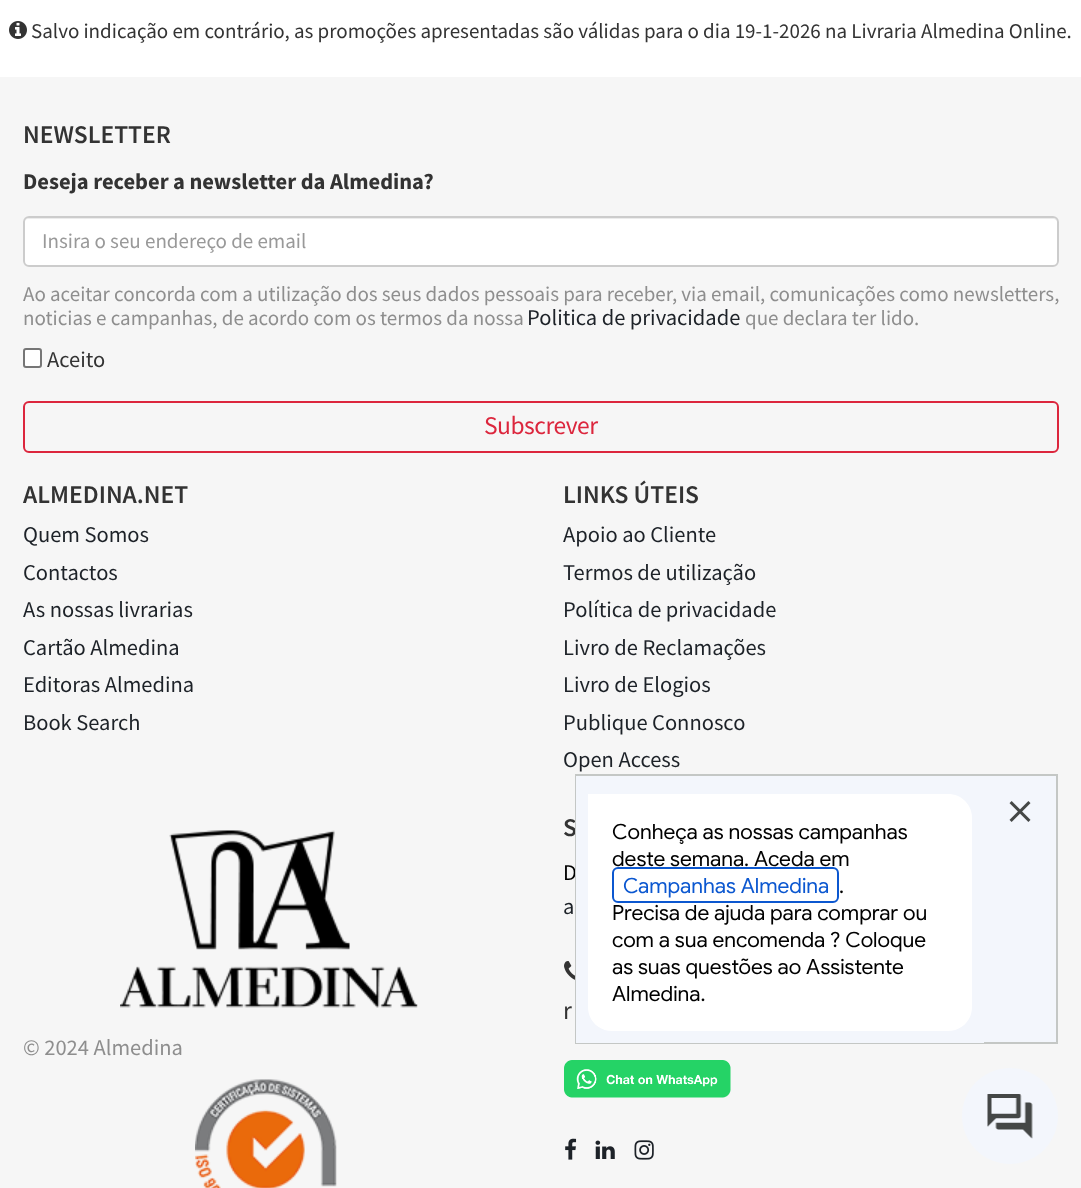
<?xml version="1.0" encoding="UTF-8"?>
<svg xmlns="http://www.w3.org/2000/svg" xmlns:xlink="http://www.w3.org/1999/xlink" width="1081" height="1188">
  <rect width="100%" height="100%" fill="#ffffff" />
  <image x="9" y="21" width="18" height="18" xlink:href="image1.png" />
  <rect y="77" width="1081" height="1111" fill="#f6f6f6" />
  <rect x="23" y="216" width="1036" height="51" rx="6" fill="#ffffff" />
  <path d="M 28 219 h 1025 c 2 0 5 2 5 5 c 0 -3 -2 -6 -5 -6 h -1024 c -3 0 -5 3 -5 6 c 0 -3 2 -5 4 -5 z" fill="#ececec" />
  <rect x="24" y="217" width="1034" height="49" rx="5" fill="none" stroke="#cccccc" stroke-width="2" />
  <rect x="24" y="349" width="17" height="18" rx="2" fill="#ffffff" stroke="#767676" stroke-width="2" />
  <rect x="24" y="402" width="1034" height="50" rx="5" fill="none" stroke="#dc263d" stroke-width="2" />
  <image x="564" y="961" width="11" height="19" xlink:href="image2.png" />
  <image x="564" y="1060" width="167" height="38" xlink:href="image3.png" />
  <image x="565" y="1138" width="12" height="22" xlink:href="image4.png" />
  <image x="595" y="1140" width="20" height="19" xlink:href="image5.png" />
  <image x="634" y="1140" width="20" height="20" xlink:href="image6.png" />
  <image x="120" y="830" width="298" height="178" xlink:href="image7.png" />
  <image x="195" y="1079" width="142" height="109" xlink:href="image8.png" />
  <rect x="984" y="776" width="72" height="266" fill="#f3f6fc" />
  <circle cx="1010" cy="1116" r="48" fill="#f3f6fc" />
  <image x="987" y="1094" width="46" height="45" xlink:href="image10.png" />
  <text x="31" y="38" style="font-family: Source Sans Pro; font-size: 21px; fill: #333333">Salvo indicação em contrário, as promoções apresentadas são válidas para o dia 19-1-2026 na Livraria Almedina Online.</text>
  <text x="23" y="143" style="font-family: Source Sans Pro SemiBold; font-size: 25.5px; font-weight: 600; fill: #333333">NEWSLETTER</text>
  <text x="23" y="189" style="font-family: Source Sans Pro; font-size: 22.5px; font-weight: bold; fill: #333333">Deseja receber a newsletter da Almedina?</text>
  <text x="42" y="248" style="font-family: Source Sans Pro; font-size: 21px; fill: #999999">Insira o seu endereço de email</text>
  <text x="23" y="301" style="font-family: Source Sans Pro; font-size: 21px; fill: #8e8e8e">Ao aceitar concorda com a utilização dos seus dados pessoais para receber, via email, comunicações como newsletters,</text>
  <text x="23" y="325" style="font-family: Source Sans Pro; font-size: 21px; fill: #8e8e8e">noticias e campanhas, de acordo com os termos da nossa</text>
  <text x="527" y="325" style="font-family: Source Sans Pro; font-size: 22.5px; fill: #1d2228">Politica de privacidade</text>
  <text x="745" y="325" style="font-family: Source Sans Pro; font-size: 21px; fill: #8e8e8e">que declara ter lido.</text>
  <text x="47" y="367" style="font-family: Source Sans Pro; font-size: 22.5px; fill: #333333">Aceito</text>
  <text x="484" y="434" style="font-family: Source Sans Pro; font-size: 25.5px; letter-spacing: -0.5px; fill: #dc263d">Subscrever</text>
  <text x="23" y="503" style="font-family: Source Sans Pro SemiBold; font-size: 25.5px; font-weight: 600; fill: #333333">ALMEDINA.NET</text>
  <text x="23" y="542" style="font-family: Source Sans Pro; font-size: 22.5px; fill: #1d2228">Quem Somos</text>
  <text x="23" y="580" style="font-family: Source Sans Pro; font-size: 22.5px; fill: #1d2228">Contactos</text>
  <text x="23" y="617" style="font-family: Source Sans Pro; font-size: 22.5px; fill: #1d2228">As nossas livrarias</text>
  <text x="23" y="655" style="font-family: Source Sans Pro; font-size: 22.5px; fill: #1d2228">Cartão Almedina</text>
  <text x="23" y="692" style="font-family: Source Sans Pro; font-size: 22.5px; fill: #1d2228">Editoras Almedina</text>
  <text x="23" y="730" style="font-family: Source Sans Pro; font-size: 22.5px; fill: #1d2228">Book Search</text>
  <text x="563" y="503" style="font-family: Source Sans Pro SemiBold; font-size: 25.5px; font-weight: 600; fill: #333333">LINKS ÚTEIS</text>
  <text x="563" y="542" style="font-family: Source Sans Pro; font-size: 22.5px; fill: #1d2228">Apoio ao Cliente</text>
  <text x="563" y="580" style="font-family: Source Sans Pro; font-size: 22.5px; fill: #1d2228">Termos de utilização</text>
  <text x="563" y="617" style="font-family: Source Sans Pro; font-size: 22.5px; fill: #1d2228">Política de privacidade</text>
  <text x="563" y="655" style="font-family: Source Sans Pro; font-size: 22.5px; fill: #1d2228">Livro de Reclamações</text>
  <text x="563" y="692" style="font-family: Source Sans Pro; font-size: 22.5px; fill: #1d2228">Livro de Elogios</text>
  <text x="563" y="730" style="font-family: Source Sans Pro; font-size: 22.5px; fill: #1d2228">Publique Connosco</text>
  <text x="563" y="767" style="font-family: Source Sans Pro; font-size: 22.5px; fill: #1d2228">Open Access</text>
  <text x="563" y="836" style="font-family: Source Sans Pro SemiBold; font-size: 25.5px; font-weight: 600; fill: #333333">S</text>
  <text x="563" y="880" style="font-family: Source Sans Pro; font-size: 22.5px; fill: #000000">D</text>
  <text x="563" y="914" style="font-family: Source Sans Pro; font-size: 22.5px; fill: #1d2228">a</text>
  <text x="563" y="1019" style="font-family: Source Sans Pro; font-size: 25.5px; fill: #333333">r</text>
  <text x="23" y="1055" style="font-family: Source Sans Pro; font-size: 22.5px; fill: #8e8e8e">© 2024 Almedina</text>
  <rect x="576" y="775" width="481" height="268" fill="none" stroke="#c4c7c5" stroke-width="2" />
  <image x="1009" y="801" width="22" height="21" xlink:href="image9.png" />
  <rect x="576" y="776" width="408" height="267" fill="#f3f6fc" />
  <path d="M 588 794 h 360 c 13.5 0 24 10.5 24 24 v 189 c 0 13.5 -10.5 24 -24 24 h -336 c -13.5 0 -24 -10.5 -24 -24 z" fill="#ffffff" />
  <text x="612" y="839" style="font-family: Google Sans; font-size: 21px; fill: #000000">Conheça as nossas campanhas</text>
  <text x="612" y="866" style="font-family: Google Sans; font-size: 21px; fill: #000000">deste semana. Aceda em</text>
  <rect x="613" y="868" width="225" height="34" rx="5" fill="none" stroke="#0b57d0" stroke-width="2" />
  <text x="623" y="893" style="font-family: Google Sans; font-size: 21px; fill: #0b57d0">Campanhas Almedina</text>
  <text x="839" y="893" style="font-family: Google Sans; font-size: 21px; fill: #000000">.</text>
  <text x="612" y="920" style="font-family: Google Sans; font-size: 21px; fill: #000000">Precisa de ajuda para comprar ou</text>
  <text x="612" y="947" style="font-family: Google Sans; font-size: 21px; fill: #000000">com a sua encomenda ? Coloque</text>
  <text x="612" y="974" style="font-family: Google Sans; font-size: 21px; fill: #000000">as suas questões ao Assistente</text>
  <text x="612" y="1001" style="font-family: Google Sans; font-size: 21px; fill: #000000">Almedina.</text>
</svg>
